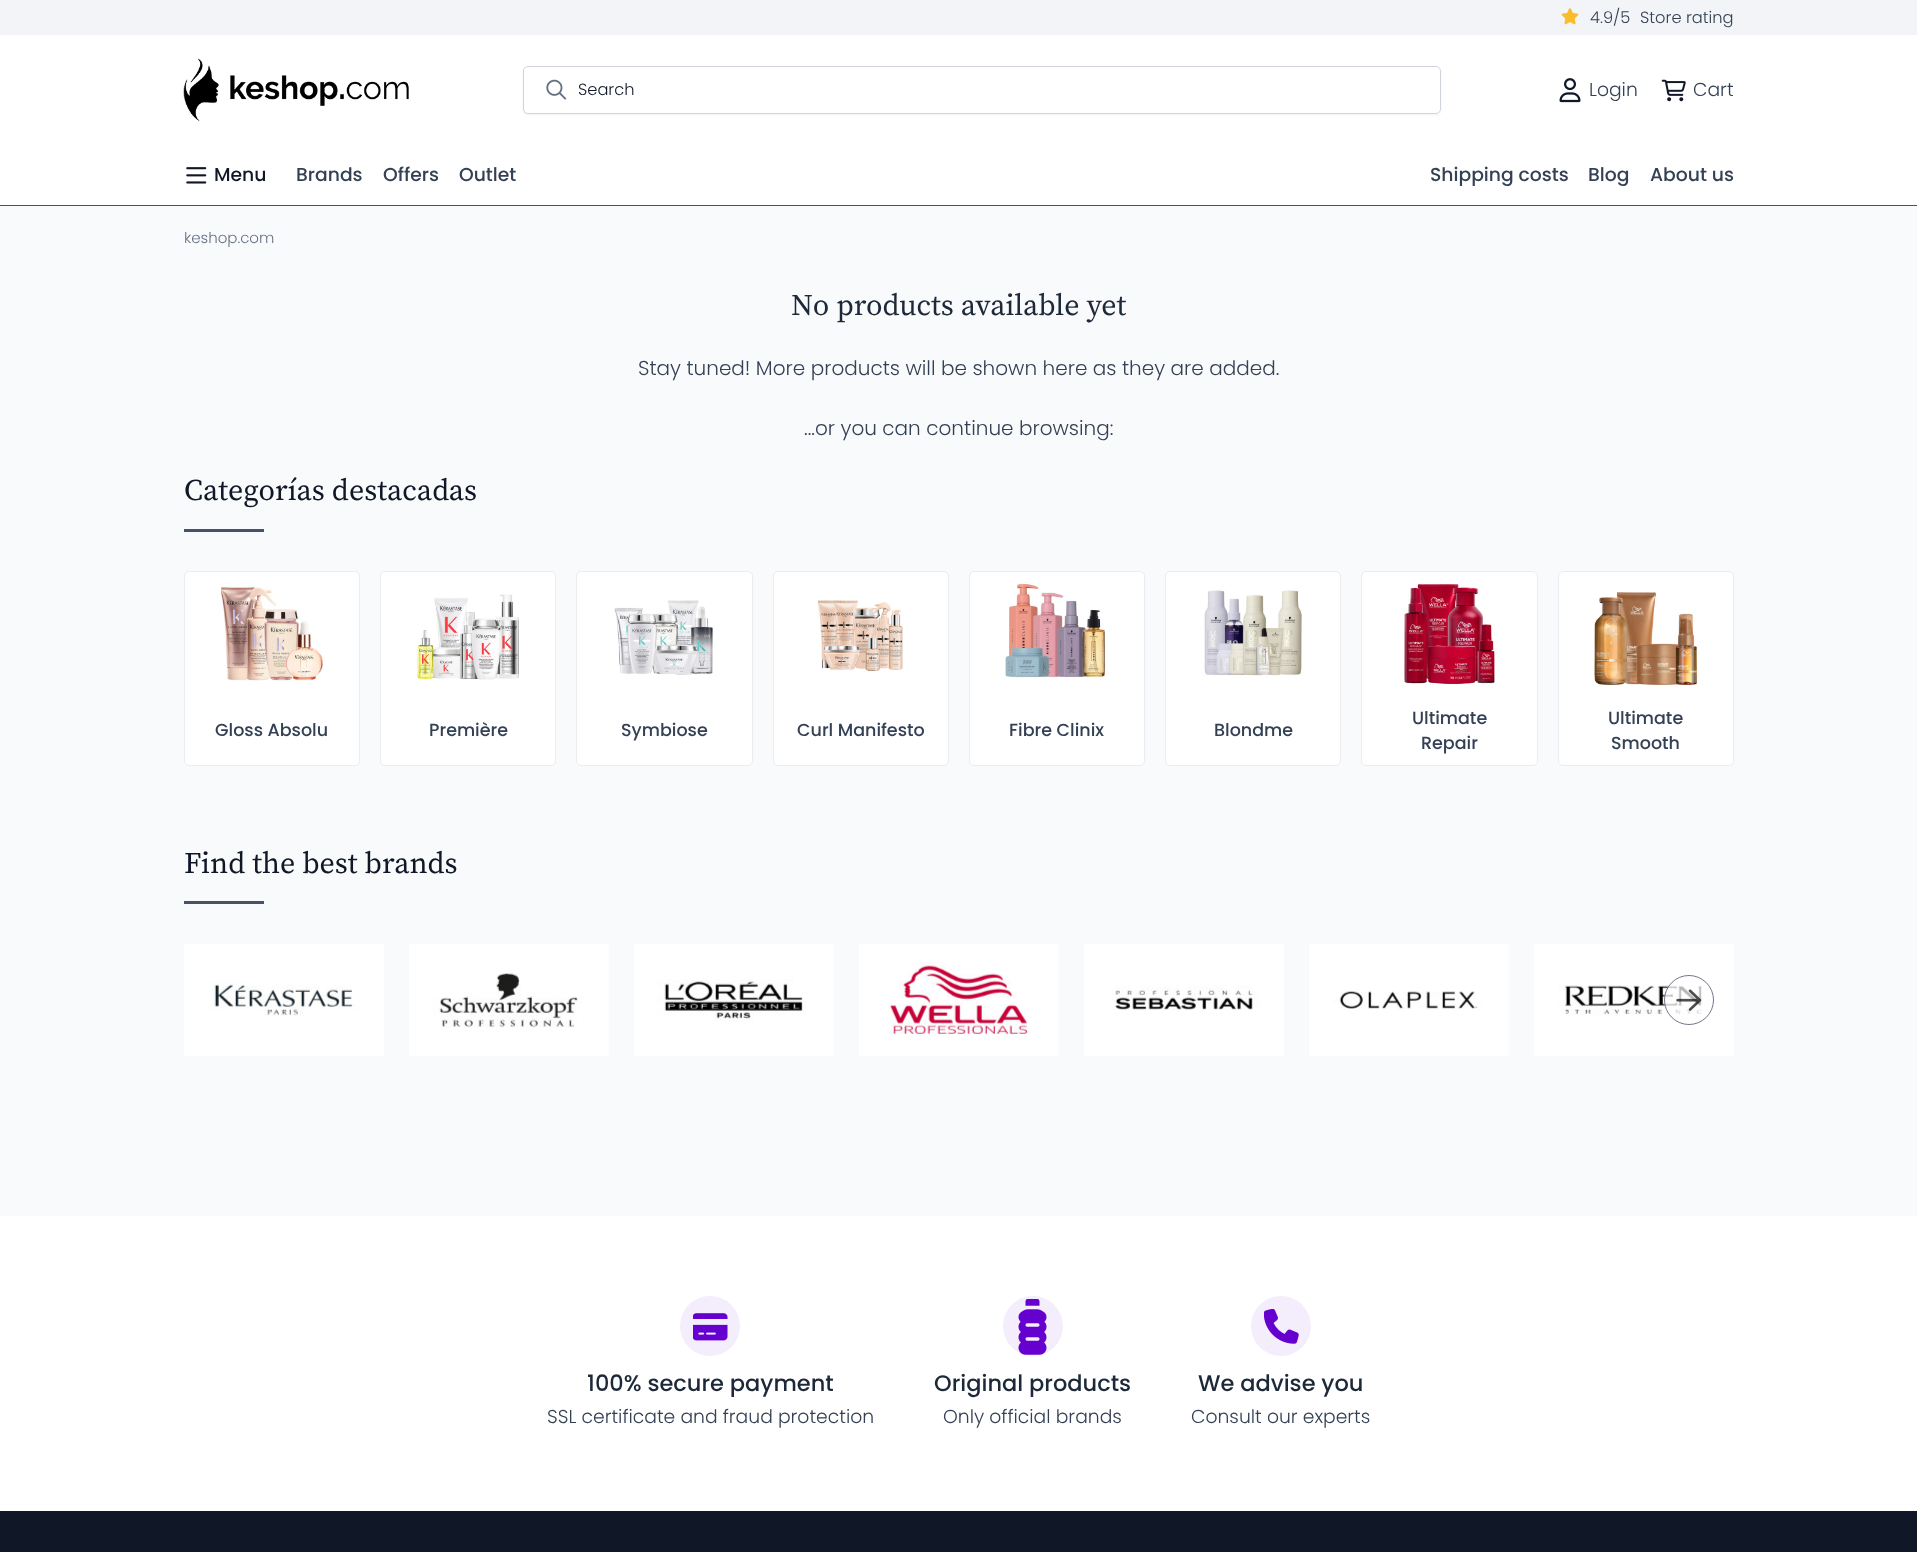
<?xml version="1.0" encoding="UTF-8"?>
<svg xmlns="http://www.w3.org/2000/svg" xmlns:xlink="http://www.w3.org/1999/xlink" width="1917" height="1552">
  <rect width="100%" height="100%" fill="#ffffff" />
  <rect width="1917" height="35" fill="#f2f4f7" />
  <image x="1561" y="8" width="18" height="17" xlink:href="image1.png" />
  <rect y="205" width="1917" height="1" fill="#475467" />
  <image x="183" y="58" width="226" height="64" xlink:href="image2.png" />
  <rect x="523" y="68" width="918" height="47" rx="5" fill="#101828" fill-opacity="0.05" filter="blur(1px)" />
  <rect x="523.5" y="66.5" width="917" height="47" rx="4.5" fill="#ffffff" stroke="#d0d5dd" />
  <image x="546" y="79" width="21" height="21" xlink:href="image3.png" />
  <image x="1559" y="78" width="22" height="25" xlink:href="image4.png" />
  <image x="1661" y="79" width="25" height="23" xlink:href="image5.png" />
  <image x="186" y="167" width="21" height="17" xlink:href="image6.png" />
  <rect y="206" width="1917" height="1010" fill="#f9fafb" />
  <rect x="184" y="529" width="80" height="3" fill="#475467" />
  <rect x="184.5" y="571.5" width="175" height="194" rx="4.5" fill="#ffffff" stroke="#eaecf0" />
  <image x="221" y="587" width="102" height="94" xlink:href="image7.png" />
  <rect x="380.5" y="571.5" width="175" height="194" rx="4.5" fill="#ffffff" stroke="#eaecf0" />
  <image x="416" y="594" width="103" height="86" xlink:href="image8.png" />
  <rect x="576.5" y="571.5" width="176" height="194" rx="4.5" fill="#ffffff" stroke="#eaecf0" />
  <image x="614" y="600" width="99" height="75" xlink:href="image9.png" />
  <rect x="773.5" y="571.5" width="175" height="194" rx="4.5" fill="#ffffff" stroke="#eaecf0" />
  <image x="817" y="600" width="86" height="71" xlink:href="image10.png" />
  <rect x="969.5" y="571.5" width="175" height="194" rx="4.5" fill="#ffffff" stroke="#eaecf0" />
  <image x="1005" y="583" width="100" height="95" xlink:href="image11.png" />
  <rect x="1165.5" y="571.5" width="175" height="194" rx="4.5" fill="#ffffff" stroke="#eaecf0" />
  <image x="1204" y="590" width="98" height="86" xlink:href="image12.png" />
  <rect x="1361.5" y="571.5" width="176" height="194" rx="4.5" fill="#ffffff" stroke="#eaecf0" />
  <image x="1404" y="583" width="91" height="101" xlink:href="image13.png" />
  <rect x="1558.5" y="571.5" width="175" height="194" rx="4.5" fill="#ffffff" stroke="#eaecf0" />
  <image x="1594" y="592" width="104" height="93" xlink:href="image14.png" />
  <rect x="184" y="901" width="80" height="3" fill="#475467" />
  <image x="184" y="944" width="200" height="112" xlink:href="image15.png" />
  <image x="409" y="944" width="200" height="112" xlink:href="image16.png" />
  <image x="634" y="944" width="200" height="112" xlink:href="image17.png" />
  <image x="859" y="944" width="200" height="112" xlink:href="image18.png" />
  <image x="1084" y="944" width="200" height="112" xlink:href="image19.png" />
  <image x="1309" y="944" width="200" height="112" xlink:href="image20.png" />
  <image x="1534" y="944" width="200" height="112" xlink:href="image21.png" />
  <circle cx="1689" cy="1000" r="25" fill="#ffffff" fill-opacity="0.7" />
  <circle cx="1689" cy="1000" r="24.5" fill="none" stroke="#344054" stroke-opacity="0.7" />
  <image x="1676" y="989" width="26" height="22" xlink:href="image22.png" />
  <circle cx="710" cy="1326" r="30" fill="#f4edfc" />
  <image x="693" y="1313" width="35" height="28" xlink:href="image23.png" />
  <circle cx="1033" cy="1326" r="30" fill="#f4edfc" />
  <image x="1018" y="1299" width="29" height="56" xlink:href="image24.png" />
  <circle cx="1281" cy="1326" r="30" fill="#f4edfc" />
  <image x="1264" y="1309" width="35" height="35" xlink:href="image25.png" />
  <rect y="1511" width="1917" height="41" fill="#101828" />
  <text x="1590" y="23" style="font-family: Poppins; font-size: 16.25px; font-weight: 300; fill: #344054">4.9/5</text>
  <text x="1640" y="23" style="font-family: Poppins; font-size: 16.25px; font-weight: 300; fill: #344054">Store rating</text>
  <text x="578" y="95" style="font-family: Poppins; font-size: 16.25px; font-weight: 300; fill: #101828">Search</text>
  <text x="1589" y="96" style="font-family: Poppins; font-size: 18.75px; font-weight: 300; fill: #344054">Login</text>
  <text x="1693" y="96" style="font-family: Poppins; font-size: 18.75px; font-weight: 300; fill: #344054">Cart</text>
  <text x="214" y="181" style="font-family: Poppins; font-size: 18.75px; font-weight: 500; fill: #101828">Menu</text>
  <text x="296" y="181" style="font-family: Poppins; font-size: 18.75px; font-weight: 500; fill: #344054">Brands</text>
  <text x="383" y="181" style="font-family: Poppins; font-size: 18.75px; font-weight: 500; fill: #344054">Offers</text>
  <text x="459" y="181" style="font-family: Poppins; font-size: 18.75px; font-weight: 500; fill: #344054">Outlet</text>
  <text x="1430" y="181" style="font-family: Poppins; font-size: 18.75px; font-weight: 500; fill: #344054">Shipping costs</text>
  <text x="1588" y="181" style="font-family: Poppins; font-size: 18.75px; font-weight: 500; fill: #344054">Blog</text>
  <text x="1650" y="181" style="font-family: Poppins; font-size: 18.75px; font-weight: 500; fill: #344054">About us</text>
  <text x="184" y="243" style="font-family: Poppins; font-size: 15px; font-weight: 300; fill: #667085">keshop.com</text>
  <text x="791" y="315" style="font-family: Source Serif Pro; font-size: 30px; fill: #1d2939">No products available yet</text>
  <text x="638" y="375" style="font-family: Poppins; font-size: 20px; font-weight: 300; fill: #344054">Stay tuned! More products will be shown here as they are added.</text>
  <text x="804" y="435" style="font-family: Poppins; font-size: 20px; font-weight: 300; fill: #344054">...or you can continue browsing:</text>
  <text x="184" y="500" style="font-family: Source Serif Pro; font-size: 30px; fill: #101828">Categorías destacadas</text>
  <text x="215" y="736" style="font-family: Poppins; font-size: 17.5px; font-weight: 500; fill: #344054">Gloss Absolu</text>
  <text x="429" y="736" style="font-family: Poppins; font-size: 17.5px; font-weight: 500; fill: #344054">Première</text>
  <text x="621" y="736" style="font-family: Poppins; font-size: 17.5px; font-weight: 500; fill: #344054">Symbiose</text>
  <text x="797" y="736" style="font-family: Poppins; font-size: 17.5px; font-weight: 500; fill: #344054">Curl Manifesto</text>
  <text x="1009" y="736" style="font-family: Poppins; font-size: 17.5px; font-weight: 500; fill: #344054">Fibre Clinix</text>
  <text x="1214" y="736" style="font-family: Poppins; font-size: 17.5px; font-weight: 500; fill: #344054">Blondme</text>
  <text x="1412" y="724" style="font-family: Poppins; font-size: 17.5px; font-weight: 500; fill: #344054">Ultimate</text>
  <text x="1421" y="749" style="font-family: Poppins; font-size: 17.5px; font-weight: 500; fill: #344054">Repair</text>
  <text x="1608" y="724" style="font-family: Poppins; font-size: 17.5px; font-weight: 500; fill: #344054">Ultimate</text>
  <text x="1611" y="749" style="font-family: Poppins; font-size: 17.5px; font-weight: 500; fill: #344054">Smooth</text>
  <text x="184" y="873" style="font-family: Source Serif Pro; font-size: 30px; fill: #101828">Find the best brands</text>
  <text x="587" y="1391" style="font-family: Poppins; font-size: 22.5px; font-weight: 500; fill: #1d2939">100% secure payment</text>
  <text x="547" y="1423" style="font-family: Poppins; font-size: 18.75px; font-weight: 300; fill: #344054">SSL certificate and fraud protection</text>
  <text x="934" y="1391" style="font-family: Poppins; font-size: 22.5px; font-weight: 500; fill: #1d2939">Original products</text>
  <text x="943" y="1423" style="font-family: Poppins; font-size: 18.75px; font-weight: 300; fill: #344054">Only official brands</text>
  <text x="1198" y="1391" style="font-family: Poppins; font-size: 22.5px; font-weight: 500; fill: #1d2939">We advise you</text>
  <text x="1191" y="1423" style="font-family: Poppins; font-size: 18.75px; font-weight: 300; fill: #344054">Consult our experts</text>
</svg>
